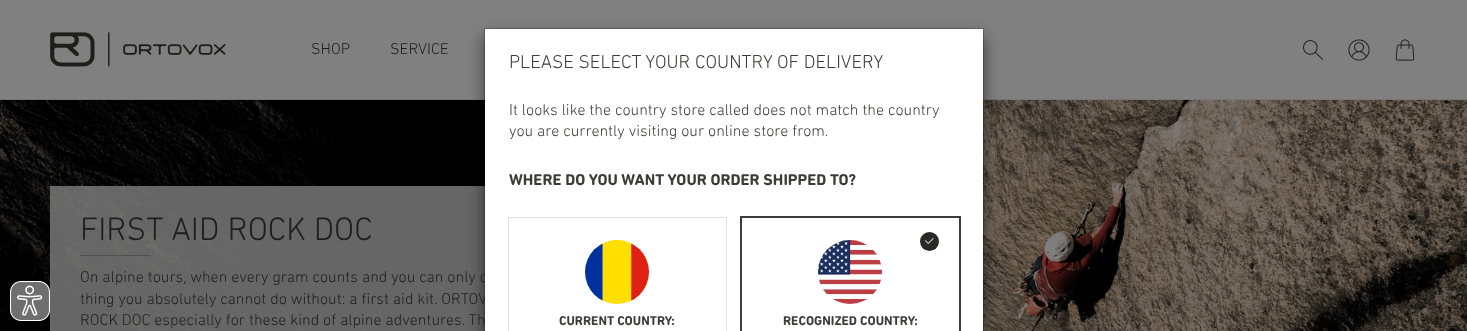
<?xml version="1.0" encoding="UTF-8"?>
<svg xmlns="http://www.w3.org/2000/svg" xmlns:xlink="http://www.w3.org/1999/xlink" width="1467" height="331">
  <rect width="100%" height="100%" fill="#ffffff" />
  <rect width="1467" height="99" fill="#808080" />
  <rect y="99" width="1467" height="1" fill="#787777" />
  <image x="50" y="32" width="176" height="35" xlink:href="image1.png" />
  <image x="1303" y="40" width="20" height="20" xlink:href="image2.png" />
  <image x="1348" y="39" width="22" height="22" xlink:href="image3.png" />
  <image x="1395" y="39" width="20" height="22" xlink:href="image4.png" />
  <image x="0" y="100" width="1467" height="231" xlink:href="image6.png" />
  <image x="10" y="281" width="40" height="40" xlink:href="image5.png" />
  <rect x="50" y="186" width="435" height="145" fill="#808080" fill-opacity="0.8" />
  <rect x="80" y="255" width="70" height="1" fill="#4f4f4e" />
  <rect x="484" y="36" width="500" height="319" fill="#000000" fill-opacity="0.5" filter="blur(8px)" />
  <text x="311" y="54" style="font-family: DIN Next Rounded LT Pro; font-size: 16px; font-weight: 300; fill: #1e1e1e">SHOP</text>
  <text x="390" y="54" style="font-family: DIN Next Rounded LT Pro; font-size: 16px; font-weight: 300; fill: #1e1e1e">SERVICE</text>
  <text x="80" y="240" style="font-family: DIN Next Rounded LT Pro; font-size: 33px; font-weight: 300; fill: #1e1e1e">FIRST AID ROCK DOC</text>
  <text x="80" y="282" style="font-family: DIN Next Rounded LT Pro; font-size: 16px; font-weight: 300; fill: #1e1e1e">On alpine tours, when every gram counts and you can only c</text>
  <text x="80" y="304" style="font-family: DIN Next Rounded LT Pro; font-size: 16px; font-weight: 300; fill: #1e1e1e">thing you absolutely cannot do without: a first aid kit. ORTOV</text>
  <text x="80" y="325" style="font-family: DIN Next Rounded LT Pro; font-size: 16px; font-weight: 300; fill: #1e1e1e">ROCK DOC especially for these kind of alpine adventures. Th</text>
  <rect x="485" y="29" width="498" height="302" fill="#ffffff" />
  <rect x="484.5" y="28.5" width="499" height="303" fill="none" stroke="#000000" stroke-opacity="0.2" />
  <text x="509" y="68" style="font-family: DIN Next Rounded LT Pro; font-size: 19px; font-weight: 300; fill: #3c3c3b">PLEASE SELECT YOUR COUNTRY OF DELIVERY</text>
  <text x="509" y="115" style="font-family: DIN Next Rounded LT Pro; font-size: 16px; font-weight: 300; fill: #3c3c3b">It looks like the country store called does not match the country</text>
  <text x="509" y="136" style="font-family: DIN Next Rounded LT Pro; font-size: 16px; font-weight: 300; fill: #3c3c3b">you are currently visiting our online store from.</text>
  <text x="509" y="185" style="font-family: DIN Next Rounded LT Pro; font-size: 16px; font-weight: bold; fill: #3c3c3b">WHERE DO YOU WANT YOUR ORDER SHIPPED TO?</text>
  <rect x="508.5" y="217.5" width="218" height="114" fill="none" stroke="#dee2e6" />
  <image x="585" y="240" width="64" height="64" xlink:href="image7.png" />
  <text x="559" y="325" style="font-family: DIN Next Rounded LT Pro; font-size: 13px; font-weight: bold; fill: #3c3c3b">CURRENT COUNTRY:</text>
  <rect x="741" y="217" width="219" height="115" fill="none" stroke="#3c3c3b" stroke-width="2" />
  <image x="818" y="240" width="64" height="64" xlink:href="image8.png" />
  <circle cx="929.5" cy="241.5" r="9.5" fill="#292928" />
  <image x="925" y="238" width="9" height="6" xlink:href="image9.png" />
  <text x="783" y="325" style="font-family: DIN Next Rounded LT Pro; font-size: 13px; font-weight: bold; fill: #3c3c3b">RECOGNIZED COUNTRY:</text>
</svg>
